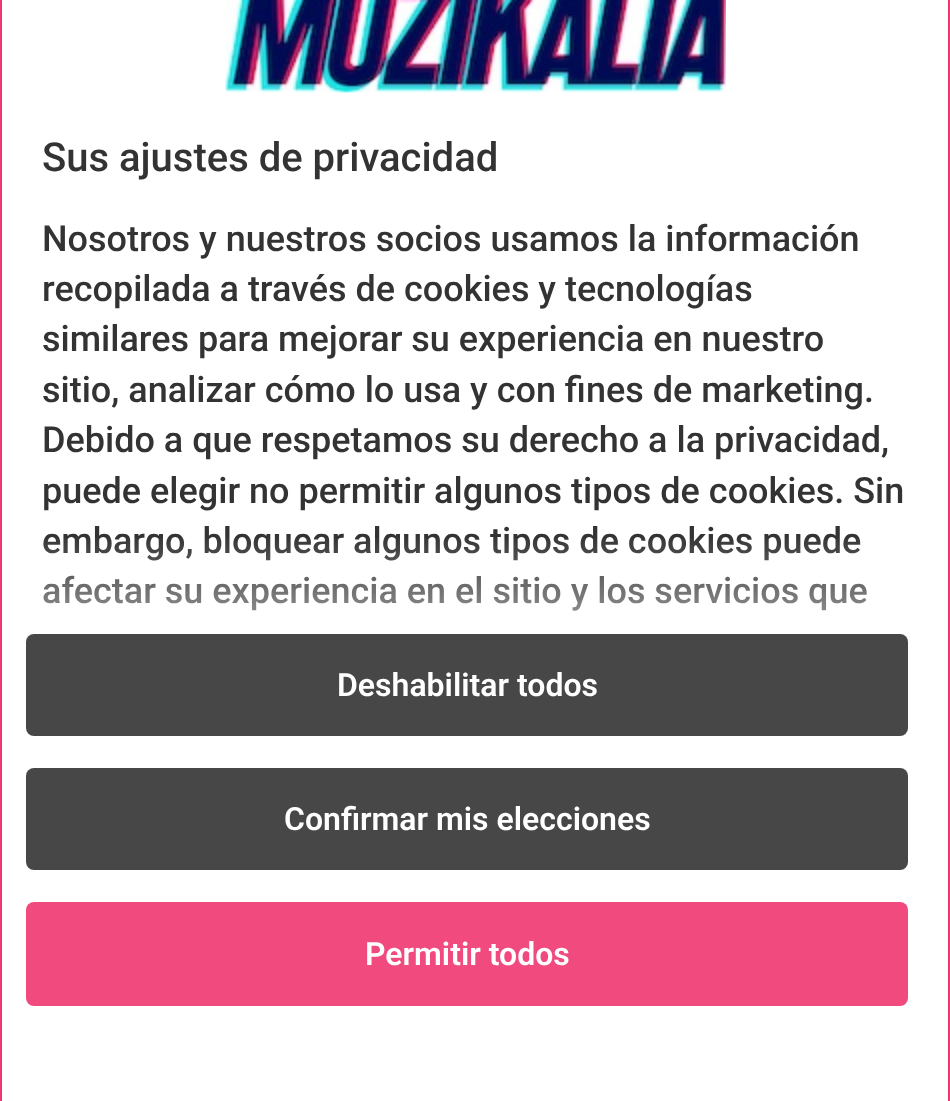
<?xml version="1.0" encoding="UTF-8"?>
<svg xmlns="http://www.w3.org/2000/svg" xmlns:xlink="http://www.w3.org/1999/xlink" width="950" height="1101">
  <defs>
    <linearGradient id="g1" gradientUnits="userSpaceOnUse" x1="475" y1="1006" x2="475" y2="534"><stop offset="0.61" stop-color="#ffffff" /><stop offset="1" stop-color="#ffffff" stop-opacity="0" /></linearGradient>
  </defs>
  <rect width="100%" height="100%" fill="#ffffff" />
  <rect x="1" y="-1" width="948" height="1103" fill="none" stroke="#ee3670" stroke-width="2" />
  <image x="225" y="0" width="501" height="93" xlink:href="image1.png" />
  <rect x="26" y="634" width="882" height="102" rx="8" fill="#333333" fill-opacity="0.9" />
  <rect x="26" y="768" width="882" height="102" rx="8" fill="#474747" />
  <rect x="26" y="902" width="882" height="104" rx="8" fill="#f04a7e" />
  <text x="42" y="171" style="font-family: Roboto; font-size: 40px; font-weight: 500; fill: #333333">Sus ajustes de privacidad</text>
  <text x="42" y="251" style="font-family: Roboto; font-size: 36px; font-weight: 500; fill: #333333">Nosotros y nuestros socios usamos la información</text>
  <text x="42" y="301" style="font-family: Roboto; font-size: 36px; font-weight: 500; fill: #333333">recopilada a través de cookies y tecnologías</text>
  <text x="42" y="351" style="font-family: Roboto; font-size: 36px; font-weight: 500; fill: #333333">similares para mejorar su experiencia en nuestro</text>
  <text x="42" y="402" style="font-family: Roboto; font-size: 36px; font-weight: 500; fill: #333333">sitio, analizar cómo lo usa y con fines de marketing.</text>
  <text x="42" y="452" style="font-family: Roboto; font-size: 36px; font-weight: 500; fill: #333333">Debido a que respetamos su derecho a la privacidad,</text>
  <text x="42" y="503" style="font-family: Roboto; font-size: 36px; font-weight: 500; fill: #333333">puede elegir no permitir algunos tipos de cookies. Sin</text>
  <text x="42" y="553" style="font-family: Roboto; font-size: 36px; font-weight: 500; fill: #333333">embargo, bloquear algunos tipos de cookies puede</text>
  <text x="42" y="603" style="font-family: Roboto; font-size: 36px; font-weight: 500; fill: #333333">afectar su experiencia en el sitio y los servicios que</text>
  <rect x="43" y="538" width="824" height="73" fill="url(#g1)" />
  <text x="337" y="696" style="font-family: Roboto; font-size: 32px; font-weight: 600; fill: #ffffff">Deshabilitar todos</text>
  <text x="284" y="830" style="font-family: Roboto; font-size: 32px; font-weight: 600; fill: #ffffff">Confirmar mis elecciones</text>
  <text x="365" y="965" style="font-family: Roboto; font-size: 32px; font-weight: 600; fill: #ffffff">Permitir todos</text>
</svg>
